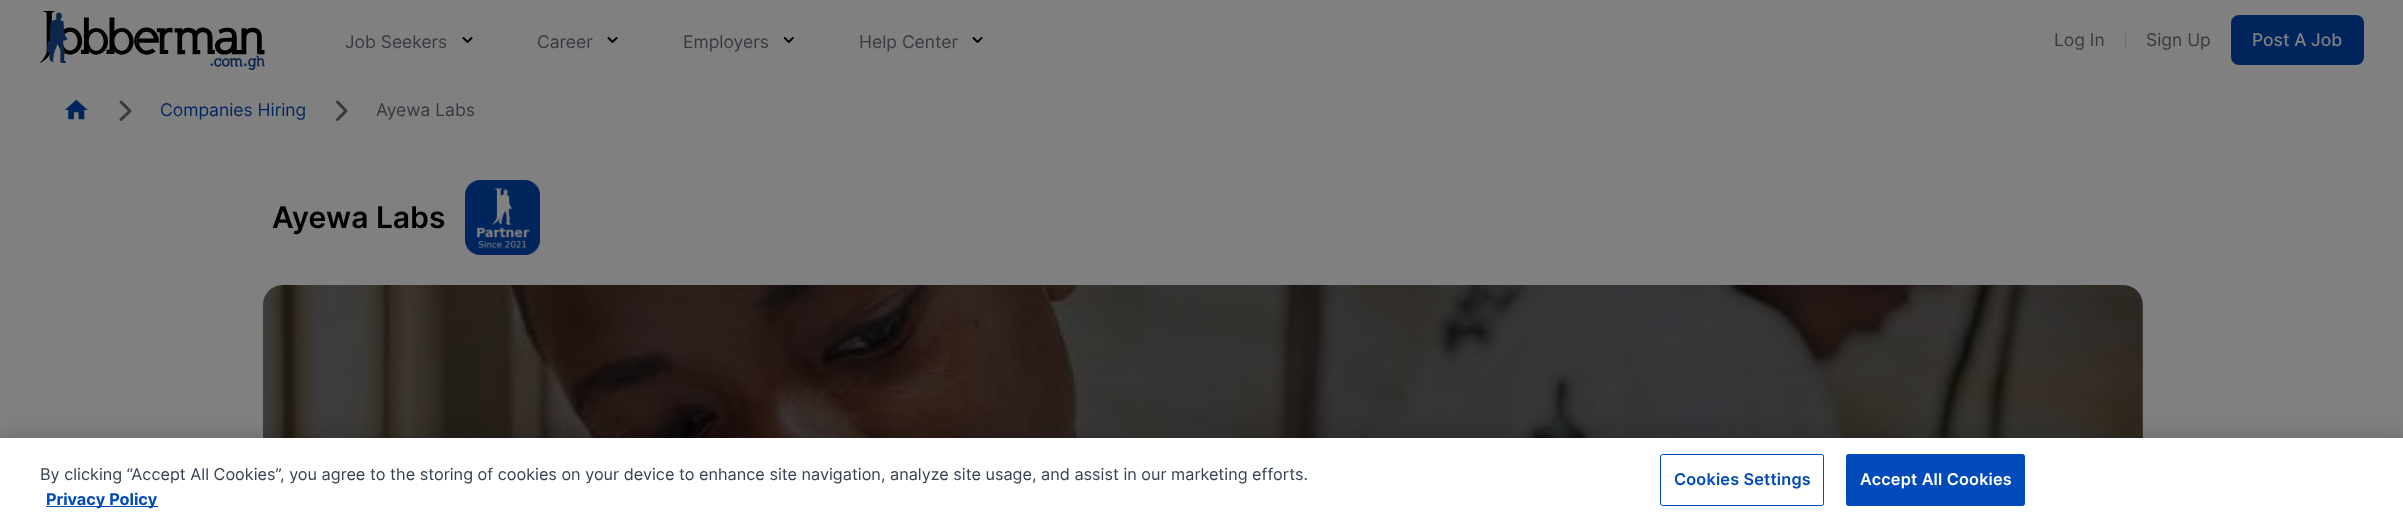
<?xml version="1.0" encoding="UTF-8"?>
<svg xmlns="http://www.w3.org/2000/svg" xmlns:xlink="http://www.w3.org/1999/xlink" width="2403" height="526">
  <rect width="100%" height="100%" fill="#808080" />
  <image x="40" y="10" width="225" height="60" xlink:href="image1.png" />
  <image x="462" y="37" width="11" height="6" xlink:href="image2.png" />
  <image x="607" y="37" width="11" height="6" xlink:href="image2.png" />
  <image x="783" y="37" width="11" height="6" xlink:href="image3.png" />
  <image x="972" y="37" width="11" height="6" xlink:href="image2.png" />
  <rect x="2125" y="33" width="1" height="15" fill="#696b6e" />
  <rect x="2231" y="15" width="133" height="50" rx="8" fill="#00255d" />
  <image x="65" y="99" width="23" height="21" xlink:href="image4.png" />
  <path d="M 121 102 l 9 9 l -9 8.5" fill="none" stroke="#363940" stroke-width="3" stroke-linecap="round" stroke-linejoin="round" />
  <path d="M 337.5 102 l 8.5 9 l -8.5 8.5" fill="none" stroke="#363940" stroke-width="3" stroke-linecap="round" stroke-linejoin="round" />
  <image x="465" y="180" width="75" height="75" xlink:href="image5.png" />
  <image x="262" y="285" width="1881" height="153" xlink:href="image6.png" />
  <rect x="263" y="285" width="1880" height="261" rx="20" fill="#000000" fill-opacity="0.5" />
  <rect y="438" width="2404" height="88" fill="#000000" fill-opacity="0.2" filter="blur(11px)" />
  <rect y="438" width="2403" height="88" fill="#ffffff" />
  <rect x="46" y="506" width="112" height="1" fill="#004ab9" />
  <rect x="1660.5" y="454.5" width="163" height="51" rx="2" fill="none" stroke="#004ab9" />
  <rect x="1846.5" y="454.5" width="178" height="51" rx="2" fill="#004ab9" stroke="#004ab9" />
  <text x="345" y="48" style="font-family: Inter; font-size: 17.5px; fill: #363940">Job Seekers</text>
  <text x="537" y="48" style="font-family: Inter; font-size: 17.5px; fill: #363940">Career</text>
  <text x="683" y="48" style="font-family: Inter; font-size: 17.5px; fill: #363940">Employers</text>
  <text x="859" y="48" style="font-family: Inter; font-size: 17.5px; fill: #363940">Help Center</text>
  <text x="2054" y="46" style="font-family: Inter; font-size: 17.5px; fill: #363940">Log In</text>
  <text x="2146" y="46" style="font-family: Inter; font-size: 17.5px; fill: #363940">Sign Up</text>
  <text x="2252" y="46" style="font-family: Inter; font-size: 17.5px; font-weight: 500; fill: #808080">Post A Job</text>
  <text x="160" y="116" style="font-family: Inter; font-size: 17.5px; fill: #00255d">Companies Hiring</text>
  <text x="376" y="116" style="font-family: Inter; font-size: 17.5px; fill: #363940">Ayewa Labs</text>
  <text x="272" y="228" style="font-family: Inter; font-size: 30px; font-weight: 600; fill: #000000">Ayewa Labs</text>
  <text x="40" y="480" style="font-family: Inter; font-size: 16.25px; fill: #374151">By clicking “Accept All Cookies”, you agree to the storing of cookies on your device to enhance site navigation, analyze site usage, and assist in our marketing efforts.</text>
  <text x="46" y="505" style="font-family: Inter; font-size: 16.25px; font-weight: bold; fill: #004ab9">Privacy Policy</text>
  <text x="1674" y="485" style="font-family: Inter; font-size: 16.25px; font-weight: 600; letter-spacing: 0.2px; fill: #004ab9">Cookies Settings</text>
  <text x="1860" y="485" style="font-family: Inter; font-size: 16.25px; font-weight: 600; letter-spacing: 0.2px; fill: #ffffff">Accept All Cookies</text>
</svg>
